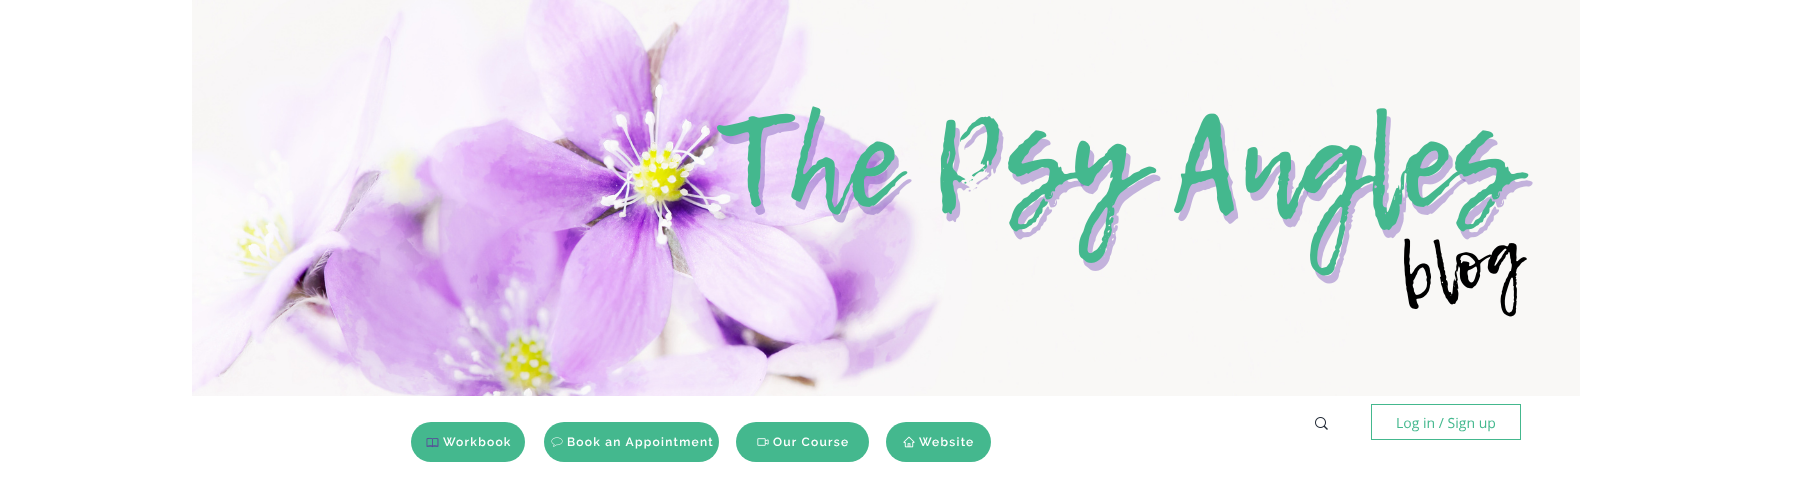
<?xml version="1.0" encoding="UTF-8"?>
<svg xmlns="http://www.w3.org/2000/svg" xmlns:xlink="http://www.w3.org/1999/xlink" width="1800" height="486">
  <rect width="100%" height="100%" fill="#ffffff" />
  <image x="192" y="0" width="1388" height="396" xlink:href="image1.png" />
  <image x="1315" y="417" width="13" height="13" xlink:href="image2.png" />
  <rect x="1371.5" y="404.5" width="149" height="35" fill="none" stroke="#44b88e" />
  <rect x="411" y="422" width="114" height="40" rx="20" fill="#44b88e" />
  <image x="426" y="437" width="13" height="11" xlink:href="image3.png" />
  <rect x="544" y="422" width="175" height="40" rx="20" fill="#44b88e" />
  <image x="551" y="437" width="12" height="10" xlink:href="image4.png" />
  <rect x="736" y="422" width="133" height="40" rx="20" fill="#44b88e" />
  <image x="757" y="438" width="12" height="8" xlink:href="image5.png" />
  <rect x="886" y="422" width="105" height="40" rx="20" fill="#44b88e" />
  <image x="903" y="436" width="12" height="12" xlink:href="image6.png" />
  <text x="1396" y="428" style="font-family: Open Sans; font-size: 14px; fill: #44b88e">Log in / Sign up</text>
  <text x="443" y="446" style="font-family: Raleway; font-size: 12px; font-weight: 600; letter-spacing: 1.25px; fill: #ffffff">Workbook</text>
  <text x="567" y="446" style="font-family: Raleway; font-size: 12px; font-weight: 600; letter-spacing: 1.25px; fill: #ffffff">Book an Appointment</text>
  <text x="773" y="446" style="font-family: Raleway; font-size: 12px; font-weight: 600; letter-spacing: 1.25px; fill: #ffffff">Our Course</text>
  <text x="919" y="446" style="font-family: Raleway; font-size: 12px; font-weight: 600; letter-spacing: 1.25px; fill: #ffffff">Website</text>
</svg>
